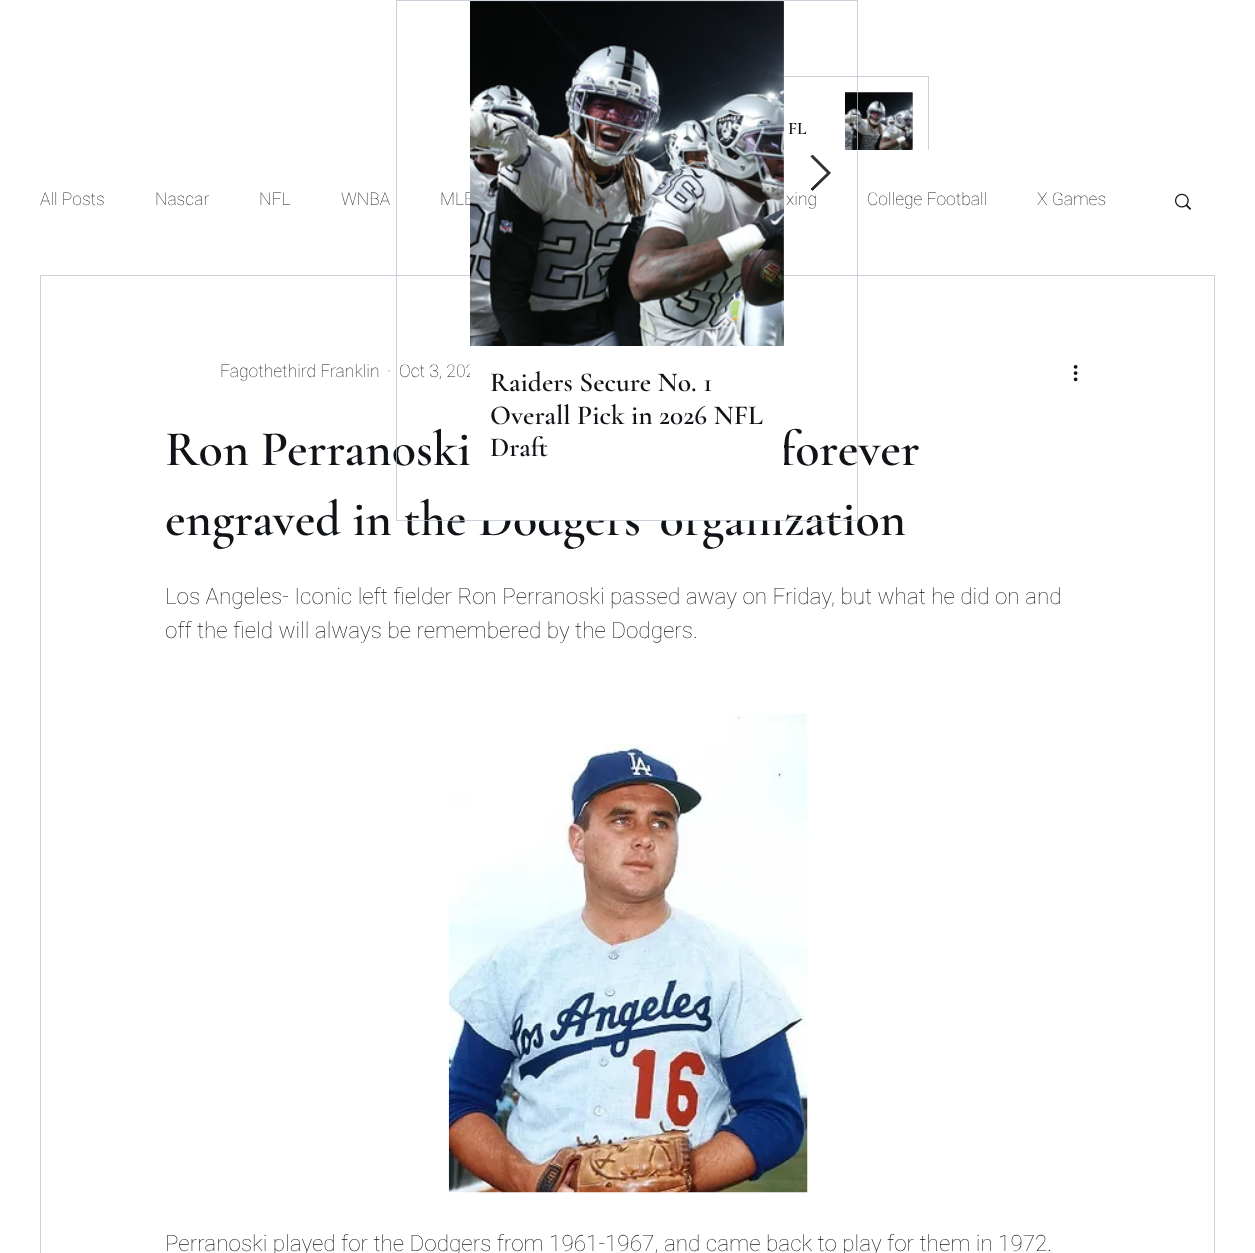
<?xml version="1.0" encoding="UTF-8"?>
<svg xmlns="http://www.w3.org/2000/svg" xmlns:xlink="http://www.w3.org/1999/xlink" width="1255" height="1253">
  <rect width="100%" height="100%" fill="#ffffff" />
  <rect x="611.5" y="76.5" width="317" height="142" fill="none" stroke="#cbd2db" />
  <image x="845" y="92" width="68" height="58" xlink:href="image1.png" />
  <image x="845" y="92" width="68" height="58" xlink:href="image2.png" />
  <rect x="611" y="150" width="318" height="69" fill="#ffffff" />
  <image x="1175" y="193" width="17" height="17" xlink:href="image3.png" />
  <rect x="40.5" y="275.5" width="1174" height="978" fill="none" stroke="#cbd2db" />
  <image x="1073" y="365" width="5" height="17" xlink:href="image4.png" />
  <image x="448" y="714" width="360" height="479" xlink:href="image5.png" />
  <text x="788" y="134" style="font-family: Cormorant Garamond; font-size: 17.5px; font-weight: 600; fill: #101317">FL</text>
  <text x="40" y="205" style="font-family: Roboto; font-size: 17.5px; font-weight: 100; fill: #101317">All Posts</text>
  <text x="155" y="205" style="font-family: Roboto; font-size: 17.5px; font-weight: 100; fill: #101317">Nascar</text>
  <text x="259" y="205" style="font-family: Roboto; font-size: 17.5px; font-weight: 100; fill: #101317">NFL</text>
  <text x="341" y="205" style="font-family: Roboto; font-size: 17.5px; font-weight: 100; fill: #101317">WNBA</text>
  <text x="440" y="205" style="font-family: Roboto; font-size: 17.5px; font-weight: 100; fill: #101317">MLB</text>
  <text x="786" y="205" style="font-family: Roboto; font-size: 17.5px; font-weight: 100; fill: #101317">xing</text>
  <text x="867" y="205" style="font-family: Roboto; font-size: 17.5px; font-weight: 100; fill: #101317">College Football</text>
  <text x="1037" y="205" style="font-family: Roboto; font-size: 17.5px; font-weight: 100; fill: #101317">X Games</text>
  <text x="220" y="377" style="font-family: Roboto; font-size: 17.5px; font-weight: 100; fill: #101317">Fagothethird Franklin</text>
  <text x="387" y="377" style="font-family: Roboto; font-size: 17.5px; font-weight: 100; fill: #101317">·</text>
  <text x="399" y="377" style="font-family: Roboto; font-size: 17.5px; font-weight: 100; fill: #101317">Oct 3, 202</text>
  <text x="165" y="465" style="font-family: Cormorant Garamond; font-size: 50px; font-weight: 600; fill: #101317">Ron Perranoski</text>
  <text x="780" y="465" style="font-family: Cormorant Garamond; font-size: 50px; font-weight: 600; fill: #101317">forever</text>
  <text x="165" y="535" style="font-family: Cormorant Garamond; font-size: 50px; font-weight: 600; fill: #101317">engraved in the Dodgers' organization</text>
  <text x="165" y="604" style="font-family: Roboto; font-size: 22.5px; font-weight: 100; fill: #101317">Los Angeles- Iconic left fielder Ron Perranoski passed away on Friday, but what he did on and</text>
  <text x="165" y="638" style="font-family: Roboto; font-size: 22.5px; font-weight: 100; fill: #101317">off the field will always be remembered by the Dodgers.</text>
  <text x="165" y="1251" style="font-family: Roboto; font-size: 22.5px; font-weight: 100; fill: #101317">Perranoski played for the Dodgers from 1961-1967, and came back to play for them in 1972.</text>
  <rect x="396.5" y="0.5" width="461" height="520" fill="none" stroke="#bac3cf" stroke-opacity="0.75" />
  <path d="M 811 156.5 l 1.5 -1.5 l 18 18 l -18 17.5 l -1.5 -1.5 l 16.5 -16 z" fill="#282b2e" stroke="#282b2e" />
  <image x="470" y="1" width="314" height="345" xlink:href="image6.png" />
  <image x="470" y="1" width="314" height="345" xlink:href="image7.png" />
  <rect x="470" y="364" width="314" height="156" fill="#ffffff" />
  <text x="490" y="391" style="font-family: Cormorant Garamond; font-size: 27.5px; font-weight: 600; fill: #101317">Raiders Secure No. 1</text>
  <text x="490" y="424" style="font-family: Cormorant Garamond; font-size: 27.5px; font-weight: 600; fill: #101317">Overall Pick in 2026 NFL</text>
  <text x="490" y="456" style="font-family: Cormorant Garamond; font-size: 27.5px; font-weight: 600; fill: #101317">Draft</text>
</svg>
